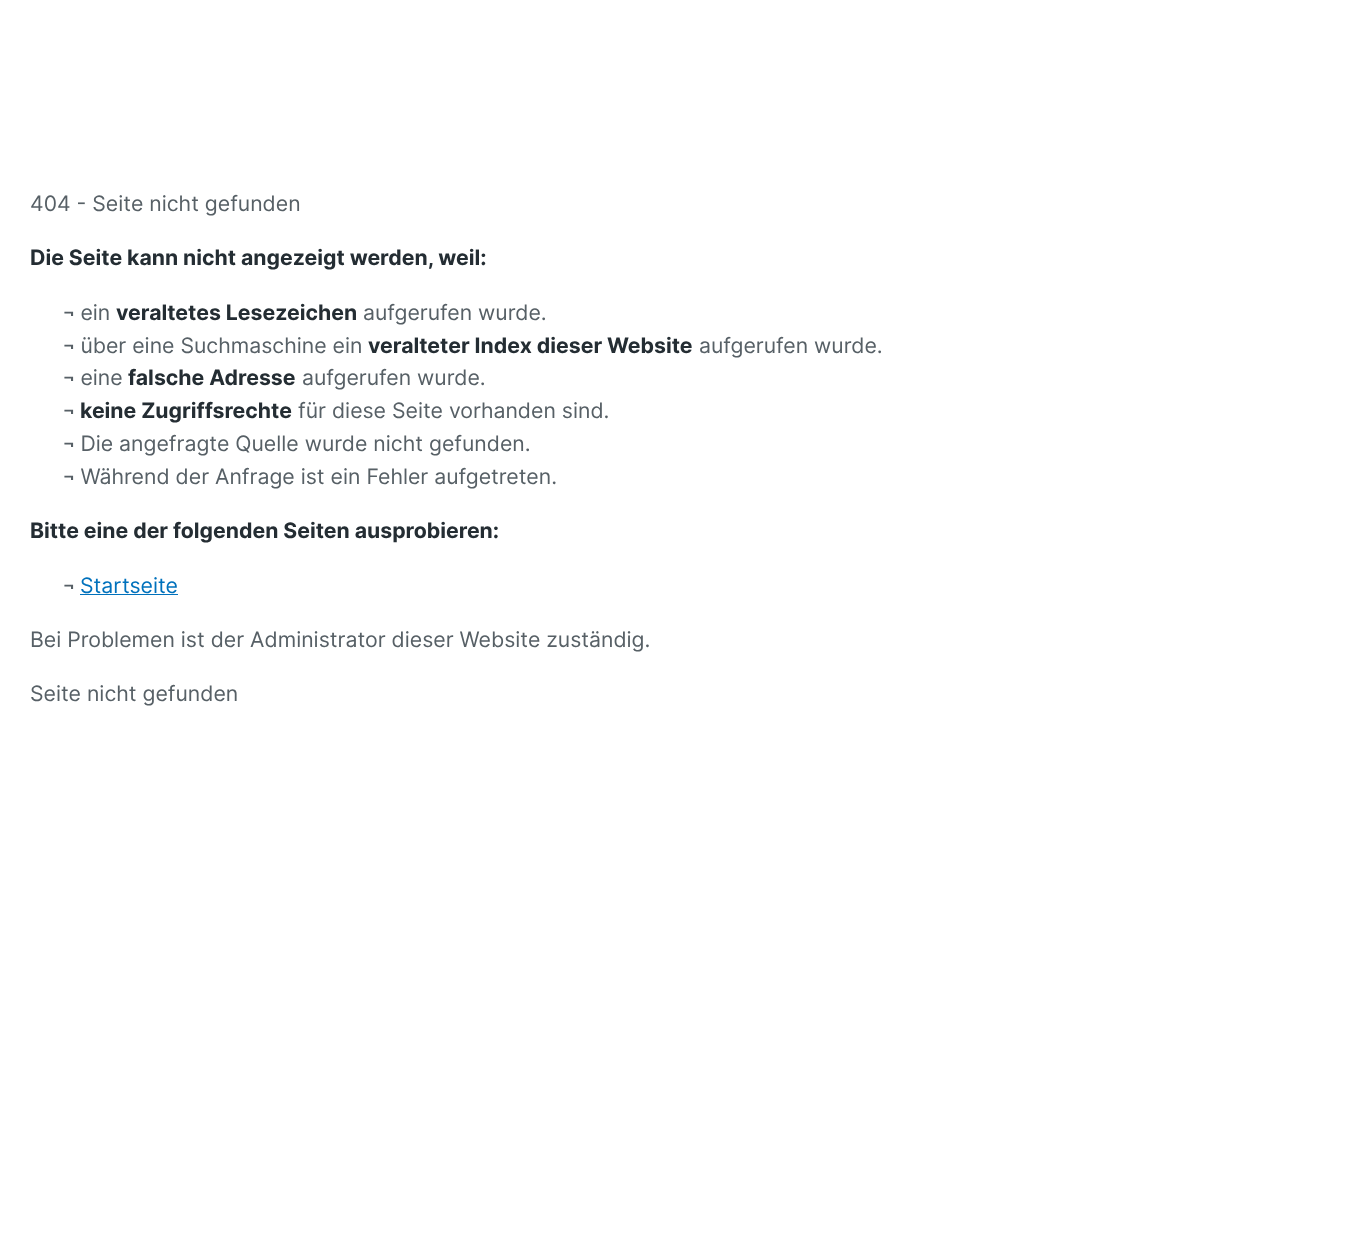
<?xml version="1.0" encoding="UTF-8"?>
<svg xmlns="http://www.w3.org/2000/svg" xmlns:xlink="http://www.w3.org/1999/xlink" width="1359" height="1250">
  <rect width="100%" height="100%" fill="#ffffff" />
  <rect x="80" y="594" width="98" height="1" fill="#0071bc" />
  <text x="30" y="211" style="font-family: Inter; font-size: 21.25px; fill: #576066">404 - Seite nicht gefunden</text>
  <text x="30" y="265" style="font-family: Inter; font-size: 21.25px; font-weight: bold; fill: #242d33">Die Seite kann nicht angezeigt werden, weil:</text>
  <text x="63" y="320" style="font-family: Inter; font-size: 21.25px; fill: #576066">¬ ein</text>
  <text x="116" y="320" style="font-family: Inter; font-size: 21.25px; font-weight: bold; fill: #242d33">veraltetes Lesezeichen</text>
  <text x="363" y="320" style="font-family: Inter; font-size: 21.25px; fill: #576066">aufgerufen wurde.</text>
  <text x="63" y="353" style="font-family: Inter; font-size: 21.25px; fill: #576066">¬ über eine Suchmaschine ein</text>
  <text x="368" y="353" style="font-family: Inter; font-size: 21.25px; font-weight: bold; fill: #242d33">veralteter Index dieser Website</text>
  <text x="699" y="353" style="font-family: Inter; font-size: 21.25px; fill: #576066">aufgerufen wurde.</text>
  <text x="63" y="385" style="font-family: Inter; font-size: 21.25px; fill: #576066">¬ eine</text>
  <text x="128" y="385" style="font-family: Inter; font-size: 21.25px; font-weight: bold; fill: #242d33">falsche Adresse</text>
  <text x="302" y="385" style="font-family: Inter; font-size: 21.25px; fill: #576066">aufgerufen wurde.</text>
  <text x="63" y="418" style="font-family: Inter; font-size: 21.25px; fill: #576066">¬</text>
  <text x="80" y="418" style="font-family: Inter; font-size: 21.25px; font-weight: bold; fill: #242d33">keine Zugriffsrechte</text>
  <text x="298" y="418" style="font-family: Inter; font-size: 21.25px; fill: #576066">für diese Seite vorhanden sind.</text>
  <text x="63" y="451" style="font-family: Inter; font-size: 21.25px; fill: #576066">¬ Die angefragte Quelle wurde nicht gefunden.</text>
  <text x="63" y="484" style="font-family: Inter; font-size: 21.25px; fill: #576066">¬ Während der Anfrage ist ein Fehler aufgetreten.</text>
  <text x="30" y="538" style="font-family: Inter; font-size: 21.25px; font-weight: bold; fill: #242d33">Bitte eine der folgenden Seiten ausprobieren:</text>
  <text x="63" y="593" style="font-family: Inter; font-size: 21.25px; fill: #576066">¬</text>
  <text x="80" y="593" style="font-family: Inter; font-size: 21.25px; fill: #0071bc">Startseite</text>
  <text x="30" y="647" style="font-family: Inter; font-size: 21.25px; fill: #576066">Bei Problemen ist der Administrator dieser Website zuständig.</text>
  <text x="30" y="701" style="font-family: Inter; font-size: 21.25px; fill: #576066">Seite nicht gefunden</text>
</svg>
